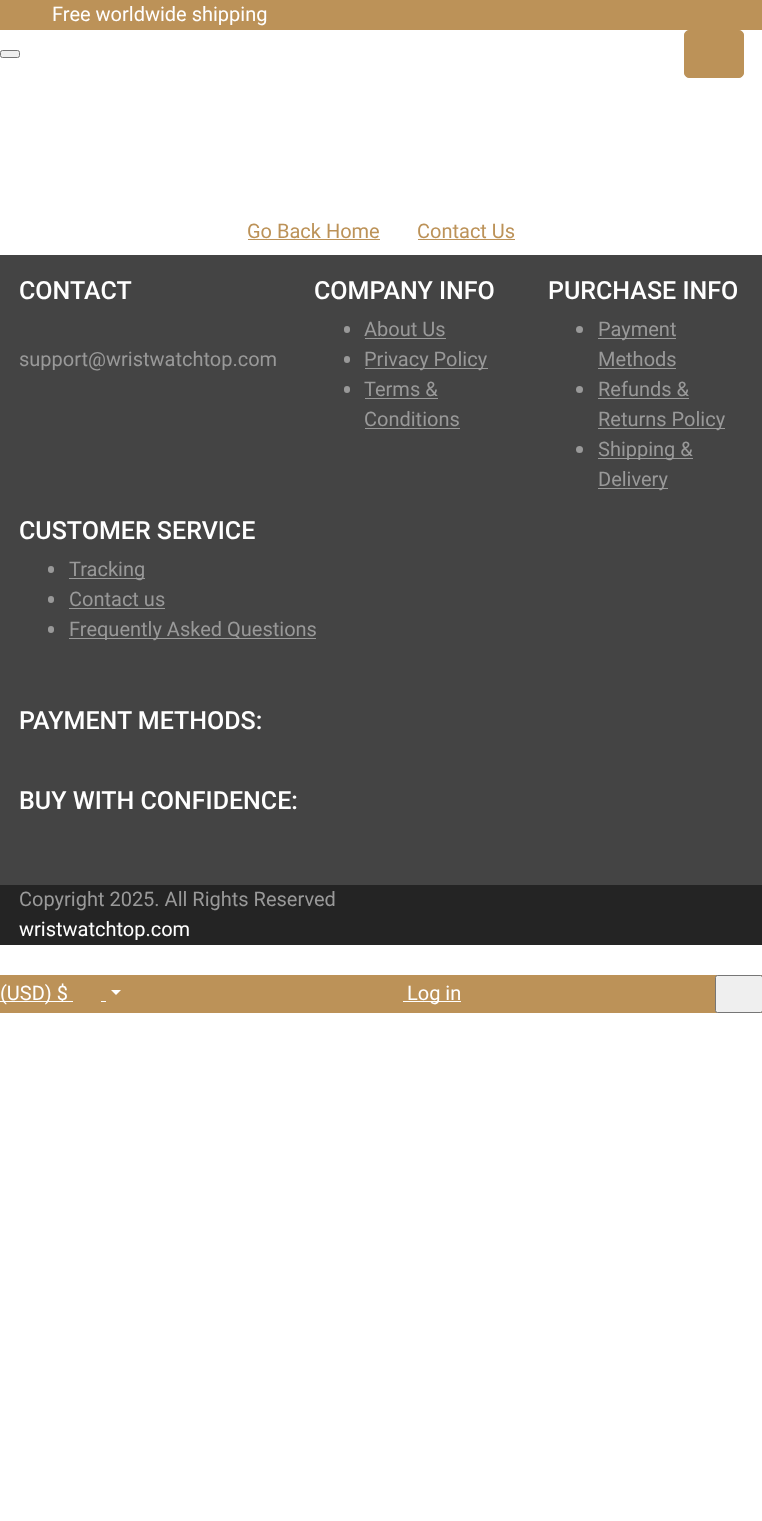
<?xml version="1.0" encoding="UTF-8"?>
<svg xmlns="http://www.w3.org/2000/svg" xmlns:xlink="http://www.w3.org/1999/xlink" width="762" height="1521">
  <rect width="100%" height="100%" fill="#ffffff" />
  <rect width="762" height="30" fill="#bc9258" />
  <rect x="0.5" y="50.5" width="19" height="7" rx="2" fill="#efefef" stroke="#767676" />
  <rect x="684.5" y="30.5" width="59" height="47" rx="4.5" fill="#bc9258" stroke="#bc9258" />
  <rect x="248" y="239" width="132" height="1" fill="#bc9258" />
  <rect x="418" y="239" width="97" height="1" fill="#bc9258" />
  <rect y="255" width="762" height="630" fill="#444444" />
  <rect x="344" y="326" width="6" height="7" rx="3" fill="#999999" />
  <rect x="365" y="338" width="81" height="1" fill="#999999" />
  <rect x="344" y="356" width="6" height="7" rx="3" fill="#999999" />
  <rect x="365" y="368" width="123" height="1" fill="#999999" />
  <rect x="344" y="386" width="6" height="7" rx="3" fill="#999999" />
  <rect x="365" y="398" width="73" height="1" fill="#999999" />
  <rect x="365" y="428" width="95" height="1" fill="#999999" />
  <circle cx="579.5" cy="329.5" r="3.5" fill="#999999" />
  <rect x="598" y="338" width="78" height="1" fill="#999999" />
  <rect x="598" y="368" width="78" height="1" fill="#999999" />
  <circle cx="579.5" cy="389.5" r="3.5" fill="#999999" />
  <rect x="598" y="398" width="91" height="1" fill="#999999" />
  <rect x="598" y="428" width="127" height="1" fill="#999999" />
  <circle cx="579.5" cy="449.5" r="3.5" fill="#999999" />
  <rect x="598" y="458" width="95" height="1" fill="#999999" />
  <rect x="598" y="488" width="70" height="1" fill="#999999" />
  <rect x="48" y="566" width="6" height="7" rx="3" fill="#999999" />
  <rect x="69" y="578" width="76" height="1" fill="#999999" />
  <rect x="48" y="596" width="6" height="7" rx="3" fill="#999999" />
  <rect x="69" y="608" width="96" height="1" fill="#999999" />
  <rect x="48" y="626" width="6" height="7" rx="3" fill="#999999" />
  <rect x="69" y="638" width="247" height="1" fill="#999999" />
  <rect y="885" width="762" height="60" fill="#242424" />
  <rect y="975" width="762" height="38" fill="#bc9258" />
  <rect y="1001" width="73" height="1" fill="#ffffff" />
  <path d="M 111 990 h 10 l -5 5 z" fill="#ffffff" />
  <rect x="101" y="1001" width="5" height="1" fill="#ffffff" />
  <rect x="403" y="1001" width="58" height="1" fill="#ffffff" />
  <rect x="715.5" y="975.5" width="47" height="37" rx="2" fill="#efefef" stroke="#767676" />
  <text x="52" y="21" style="font-family: Roboto; font-size: 20px; fill: #ffffff">Free worldwide shipping</text>
  <text x="247" y="238" style="font-family: Roboto; font-size: 20px; fill: #bc9258">Go Back Home</text>
  <text x="417" y="238" style="font-family: Roboto; font-size: 20px; fill: #bc9258">Contact Us</text>
  <text x="19" y="299" style="font-family: Roboto; font-size: 25px; font-weight: 500; fill: #ffffff">CONTACT</text>
  <text x="19" y="366" style="font-family: Roboto; font-size: 20px; fill: #999999">support@wristwatchtop.com</text>
  <text x="314" y="299" style="font-family: Roboto; font-size: 25px; font-weight: 500; fill: #ffffff">COMPANY INFO</text>
  <text x="364" y="336" style="font-family: Roboto; font-size: 20px; fill: #999999">About Us</text>
  <text x="364" y="366" style="font-family: Roboto; font-size: 20px; fill: #999999">Privacy Policy</text>
  <text x="364" y="396" style="font-family: Roboto; font-size: 20px; fill: #999999">Terms &amp;</text>
  <text x="364" y="426" style="font-family: Roboto; font-size: 20px; fill: #999999">Conditions</text>
  <text x="548" y="299" style="font-family: Roboto; font-size: 25px; font-weight: 500; fill: #ffffff">PURCHASE INFO</text>
  <text x="598" y="336" style="font-family: Roboto; font-size: 20px; fill: #999999">Payment</text>
  <text x="598" y="366" style="font-family: Roboto; font-size: 20px; fill: #999999">Methods</text>
  <text x="598" y="396" style="font-family: Roboto; font-size: 20px; fill: #999999">Refunds &amp;</text>
  <text x="598" y="426" style="font-family: Roboto; font-size: 20px; fill: #999999">Returns Policy</text>
  <text x="598" y="456" style="font-family: Roboto; font-size: 20px; fill: #999999">Shipping &amp;</text>
  <text x="598" y="486" style="font-family: Roboto; font-size: 20px; fill: #999999">Delivery</text>
  <text x="19" y="539" style="font-family: Roboto; font-size: 25px; font-weight: 500; fill: #ffffff">CUSTOMER SERVICE</text>
  <text x="69" y="576" style="font-family: Roboto; font-size: 20px; fill: #999999">Tracking</text>
  <text x="69" y="606" style="font-family: Roboto; font-size: 20px; fill: #999999">Contact us</text>
  <text x="69" y="636" style="font-family: Roboto; font-size: 20px; fill: #999999">Frequently Asked Questions</text>
  <text x="19" y="729" style="font-family: Roboto; font-size: 25px; font-weight: 500; fill: #ffffff">PAYMENT METHODS:</text>
  <text x="19" y="809" style="font-family: Roboto; font-size: 25px; font-weight: 500; fill: #ffffff">BUY WITH CONFIDENCE:</text>
  <text x="19" y="906" style="font-family: Roboto; font-size: 20px; fill: #999999">Copyright 2025. All Rights Reserved</text>
  <text x="19" y="936" style="font-family: Roboto; font-size: 20px; fill: #ffffff">wristwatchtop.com</text>
  <text x="0" y="1000" style="font-family: Roboto; font-size: 20px; fill: #ffffff">(USD) $</text>
  <text x="407" y="1000" style="font-family: Roboto; font-size: 20px; fill: #ffffff">Log in</text>
</svg>
